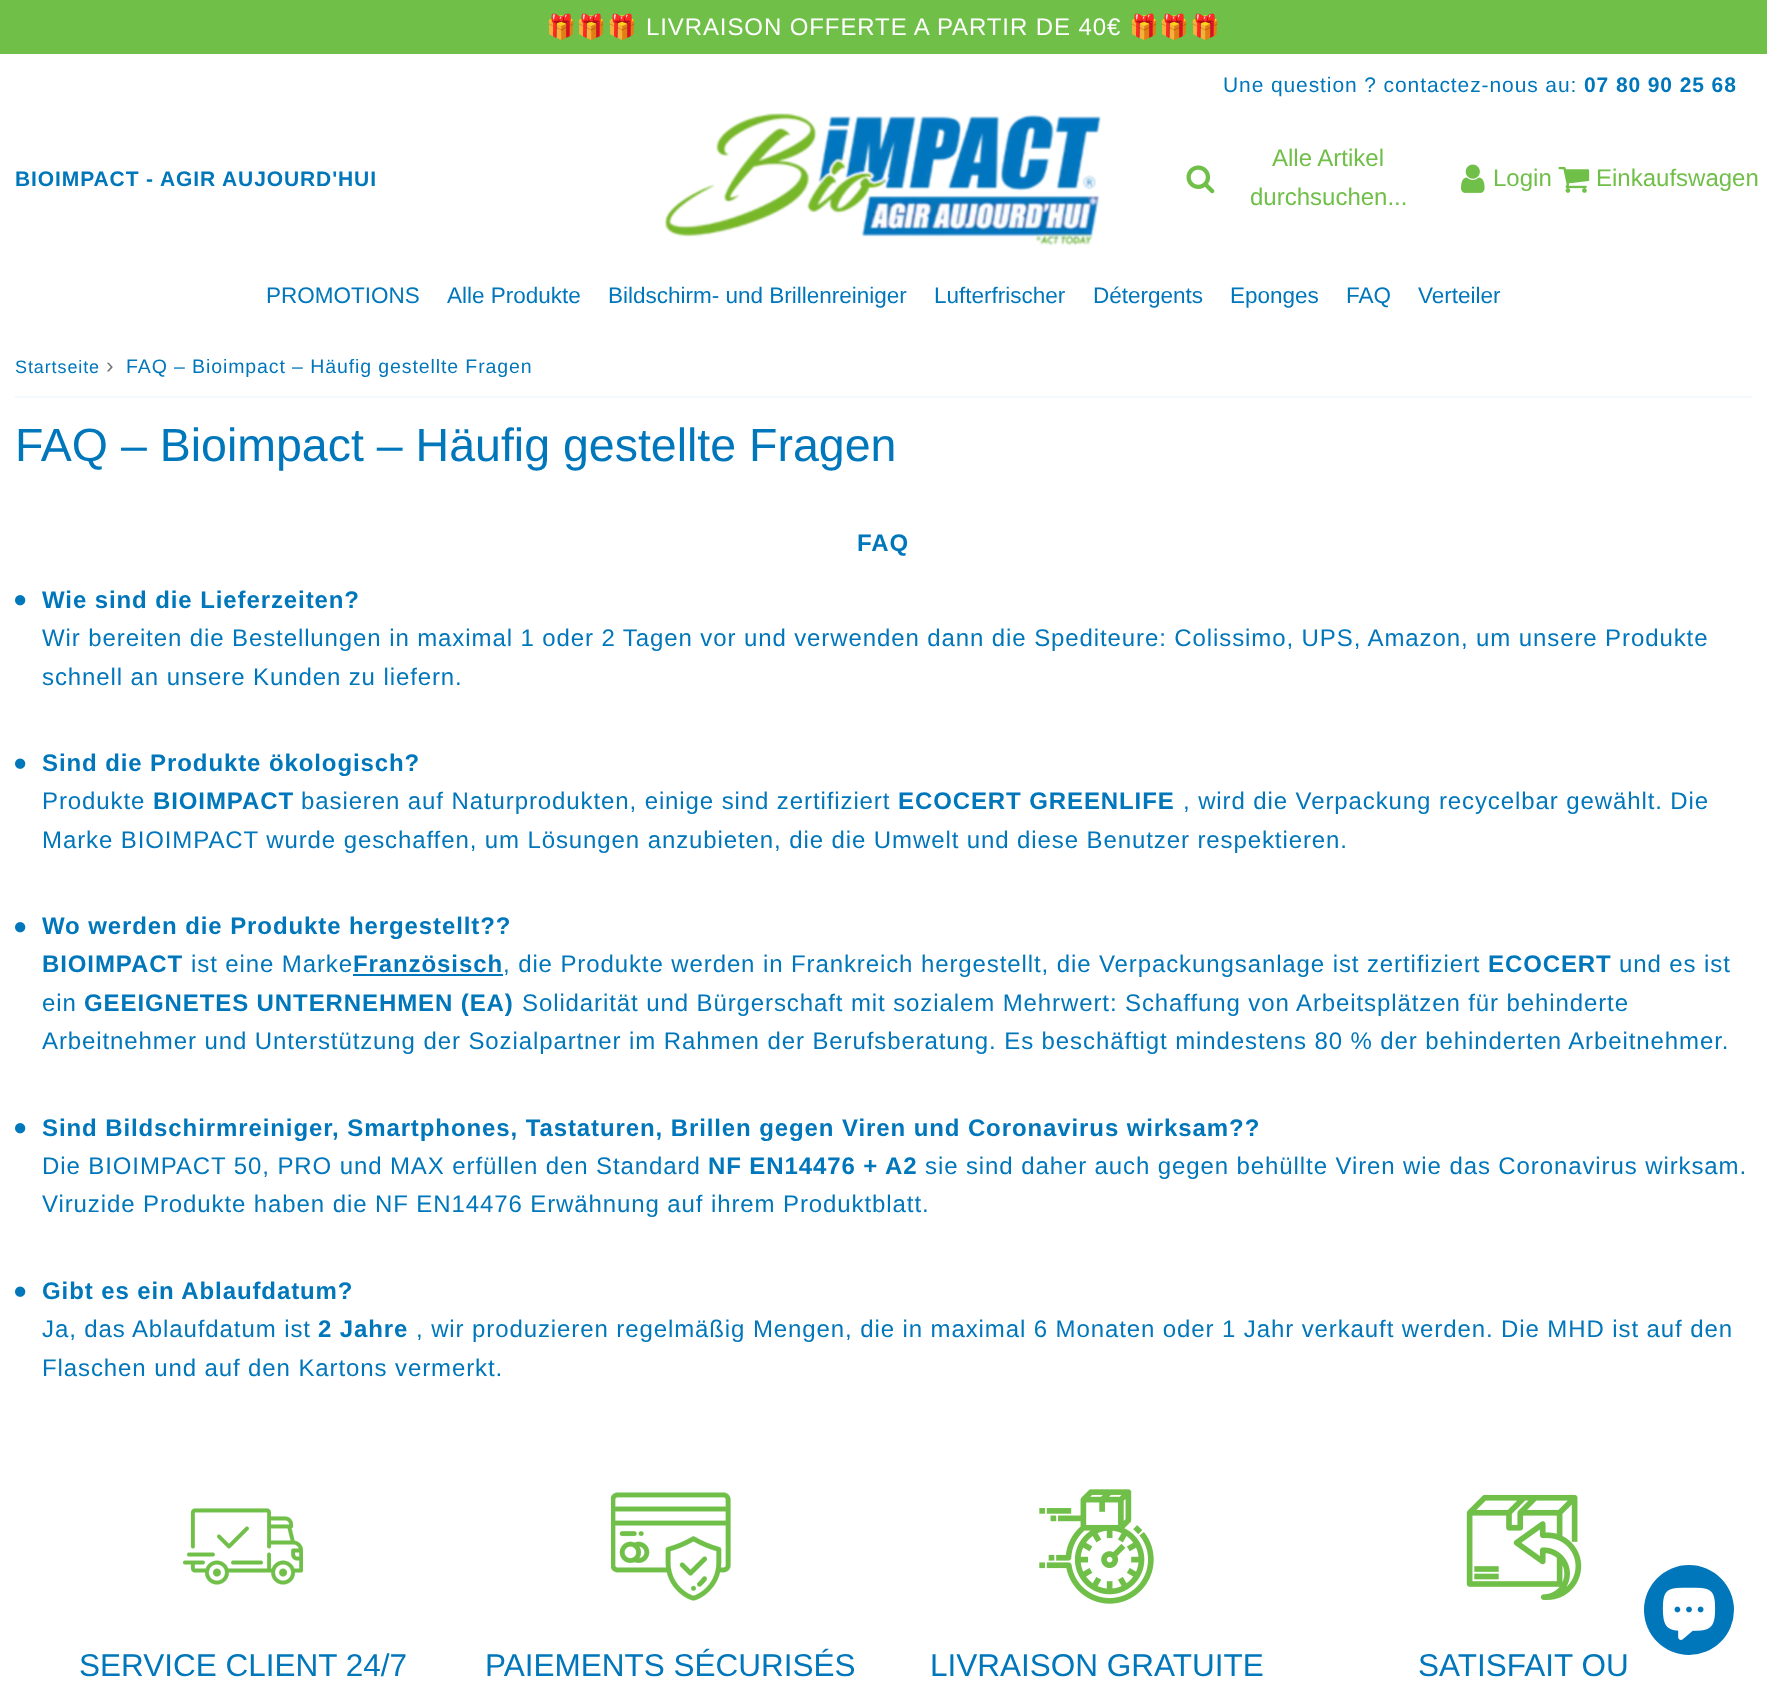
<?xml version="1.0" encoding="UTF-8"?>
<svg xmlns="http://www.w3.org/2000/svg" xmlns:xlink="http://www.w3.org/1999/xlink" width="1767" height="1685">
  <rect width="100%" height="100%" fill="#ffffff" />
  <rect width="1767" height="54" fill="#6fbf48" />
  <image x="664" y="113" width="437" height="133" xlink:href="image1.png" />
  <image x="1186" y="165" width="29" height="29" xlink:href="image2.png" />
  <image x="1461" y="164" width="24" height="29" xlink:href="image3.png" />
  <image x="1558" y="166" width="32" height="27" xlink:href="image4.png" />
  <rect x="15" y="396" width="1737" height="2" fill="#f2f8fc" />
  <image x="15" y="595" width="11" height="11" xlink:href="image5.png" />
  <image x="15" y="758" width="11" height="11" xlink:href="image6.png" />
  <image x="15" y="922" width="11" height="11" xlink:href="image5.png" />
  <rect x="353" y="974" width="150" height="2" fill="#0076bb" />
  <image x="15" y="1123" width="11" height="11" xlink:href="image5.png" />
  <image x="15" y="1286" width="11" height="11" xlink:href="image6.png" />
  <circle cx="1689" cy="1610" r="45" fill="#0076bb" />
  <image x="1662" y="1587" width="54" height="53" xlink:href="image7.png" />
  <image x="183" y="1508" width="120" height="77" xlink:href="image8.png" />
  <image x="611" y="1492" width="120" height="109" xlink:href="image9.png" />
  <image x="1039" y="1489" width="115" height="115" xlink:href="image10.png" />
  <image x="1466" y="1494" width="116" height="106" xlink:href="image11.png" />
  <text x="546" y="35" style="font-family: Noto Color Emoji; font-size: 24px; letter-spacing: 0.9px; fill: #ffffff">🎁🎁🎁</text>
  <text x="646" y="35" style="font-family: Liberation Sans; font-size: 24px; letter-spacing: 0.9px; fill: #ffffff">LIVRAISON OFFERTE A PARTIR DE 40€</text>
  <text x="1129" y="35" style="font-family: Noto Color Emoji; font-size: 24px; letter-spacing: 0.9px; fill: #ffffff">🎁🎁🎁</text>
  <text x="1223" y="92" style="font-family: Liberation Sans; font-size: 21px; letter-spacing: 0.9px; fill: #0076bb">Une question ? contactez-nous au:</text>
  <text x="1584" y="92" style="font-family: Liberation Sans; font-size: 21px; font-weight: bold; letter-spacing: 0.9px; fill: #0076bb">07 80 90 25 68</text>
  <text x="15" y="186" style="font-family: Liberation Sans; font-size: 21px; font-weight: bold; letter-spacing: 0.9px; fill: #0076bb">BIOIMPACT - AGIR AUJOURD'HUI</text>
  <text x="1272" y="166" style="font-family: Liberation Sans; font-size: 24px; fill: #6fbf48">Alle Artikel</text>
  <text x="1250" y="205" style="font-family: Liberation Sans; font-size: 24px; fill: #6fbf48">durchsuchen...</text>
  <text x="1493" y="186" style="font-family: Liberation Sans; font-size: 24px; fill: #6fbf48">Login</text>
  <text x="1596" y="186" style="font-family: Liberation Sans; font-size: 24px; fill: #6fbf48">Einkaufswagen</text>
  <text x="266" y="303" style="font-family: Liberation Sans; font-size: 22.5px; fill: #0076bb">PROMOTIONS</text>
  <text x="447" y="303" style="font-family: Liberation Sans; font-size: 22.5px; fill: #0076bb">Alle Produkte</text>
  <text x="608" y="303" style="font-family: Liberation Sans; font-size: 22.5px; fill: #0076bb">Bildschirm- und Brillenreiniger</text>
  <text x="934" y="303" style="font-family: Liberation Sans; font-size: 22.5px; fill: #0076bb">Lufterfrischer</text>
  <text x="1093" y="303" style="font-family: Liberation Sans; font-size: 22.5px; fill: #0076bb">Détergents</text>
  <text x="1230" y="303" style="font-family: Liberation Sans; font-size: 22.5px; fill: #0076bb">Eponges</text>
  <text x="1346" y="303" style="font-family: Liberation Sans; font-size: 22.5px; fill: #0076bb">FAQ</text>
  <text x="1418" y="303" style="font-family: Liberation Sans; font-size: 22.5px; fill: #0076bb">Verteiler</text>
  <text x="15" y="373" style="font-family: Liberation Sans; font-size: 18px; letter-spacing: 0.9px; fill: #0076bb">Startseite</text>
  <text x="106" y="373" style="font-family: Liberation Sans; font-size: 22.5px; letter-spacing: 0.9px; fill: #767676">›</text>
  <text x="126" y="373" style="font-family: Liberation Sans; font-size: 19.5px; letter-spacing: 0.9px; fill: #0076bb">FAQ – Bioimpact – Häufig gestellte Fragen</text>
  <text x="15" y="461" style="font-family: Liberation Sans; font-size: 46.5px; fill: #0076bb">FAQ – Bioimpact – Häufig gestellte Fragen</text>
  <text x="857" y="551" style="font-family: Liberation Sans; font-size: 24px; font-weight: bold; letter-spacing: 0.9px; fill: #0076bb">FAQ</text>
  <text x="42" y="608" style="font-family: Liberation Sans; font-size: 24px; font-weight: bold; letter-spacing: 0.9px; fill: #0076bb">Wie sind die Lieferzeiten?</text>
  <text x="42" y="646" style="font-family: Liberation Sans; font-size: 24px; letter-spacing: 0.9px; fill: #0076bb">Wir bereiten die Bestellungen in maximal 1 oder 2 Tagen vor und verwenden dann die Spediteure: Colissimo, UPS, Amazon, um unsere Produkte</text>
  <text x="42" y="685" style="font-family: Liberation Sans; font-size: 24px; letter-spacing: 0.9px; fill: #0076bb">schnell an unsere Kunden zu liefern.</text>
  <text x="42" y="771" style="font-family: Liberation Sans; font-size: 24px; font-weight: bold; letter-spacing: 0.9px; fill: #0076bb">Sind die Produkte ökologisch?</text>
  <text x="42" y="809" style="font-family: Liberation Sans; font-size: 24px; letter-spacing: 0.9px; fill: #0076bb">Produkte</text>
  <text x="153" y="809" style="font-family: Liberation Sans; font-size: 24px; font-weight: bold; letter-spacing: 0.9px; fill: #0076bb">BIOIMPACT</text>
  <text x="301" y="809" style="font-family: Liberation Sans; font-size: 24px; letter-spacing: 0.9px; fill: #0076bb">basieren auf Naturprodukten, einige sind zertifiziert</text>
  <text x="898" y="809" style="font-family: Liberation Sans; font-size: 24px; font-weight: bold; letter-spacing: 0.9px; fill: #0076bb">ECOCERT GREENLIFE</text>
  <text x="1183" y="809" style="font-family: Liberation Sans; font-size: 24px; letter-spacing: 0.9px; fill: #0076bb">, wird die Verpackung recycelbar gewählt. Die</text>
  <text x="42" y="848" style="font-family: Liberation Sans; font-size: 24px; letter-spacing: 0.9px; fill: #0076bb">Marke BIOIMPACT wurde geschaffen, um Lösungen anzubieten, die die Umwelt und diese Benutzer respektieren.</text>
  <text x="42" y="934" style="font-family: Liberation Sans; font-size: 24px; font-weight: bold; letter-spacing: 0.9px; fill: #0076bb">Wo werden die Produkte hergestellt??</text>
  <text x="42" y="972" style="font-family: Liberation Sans; font-size: 24px; font-weight: bold; letter-spacing: 0.9px; fill: #0076bb">BIOIMPACT</text>
  <text x="191" y="972" style="font-family: Liberation Sans; font-size: 24px; letter-spacing: 0.9px; fill: #0076bb">ist eine Marke</text>
  <text x="353" y="972" style="font-family: Liberation Sans; font-size: 24px; font-weight: bold; letter-spacing: 0.9px; fill: #0076bb">Französisch</text>
  <text x="503" y="972" style="font-family: Liberation Sans; font-size: 24px; letter-spacing: 0.9px; fill: #0076bb">, die Produkte werden in Frankreich hergestellt, die Verpackungsanlage ist zertifiziert</text>
  <text x="1488" y="972" style="font-family: Liberation Sans; font-size: 24px; font-weight: bold; letter-spacing: 0.9px; fill: #0076bb">ECOCERT</text>
  <text x="1619" y="972" style="font-family: Liberation Sans; font-size: 24px; letter-spacing: 0.9px; fill: #0076bb">und es ist</text>
  <text x="42" y="1011" style="font-family: Liberation Sans; font-size: 24px; letter-spacing: 0.9px; fill: #0076bb">ein</text>
  <text x="84" y="1011" style="font-family: Liberation Sans; font-size: 24px; font-weight: bold; letter-spacing: 0.9px; fill: #0076bb">GEEIGNETES UNTERNEHMEN (EA)</text>
  <text x="522" y="1011" style="font-family: Liberation Sans; font-size: 24px; letter-spacing: 0.9px; fill: #0076bb">Solidarität und Bürgerschaft mit sozialem Mehrwert: Schaffung von Arbeitsplätzen für behinderte</text>
  <text x="42" y="1049" style="font-family: Liberation Sans; font-size: 24px; letter-spacing: 0.9px; fill: #0076bb">Arbeitnehmer und Unterstützung der Sozialpartner im Rahmen der Berufsberatung. Es beschäftigt mindestens 80 % der behinderten Arbeitnehmer.</text>
  <text x="42" y="1136" style="font-family: Liberation Sans; font-size: 24px; font-weight: bold; letter-spacing: 0.9px; fill: #0076bb">Sind Bildschirmreiniger, Smartphones, Tastaturen, Brillen gegen Viren und Coronavirus wirksam??</text>
  <text x="42" y="1174" style="font-family: Liberation Sans; font-size: 24px; letter-spacing: 0.9px; fill: #0076bb">Die BIOIMPACT 50, PRO und MAX erfüllen den Standard</text>
  <text x="708" y="1174" style="font-family: Liberation Sans; font-size: 24px; font-weight: bold; letter-spacing: 0.9px; fill: #0076bb">NF EN14476 + A2</text>
  <text x="925" y="1174" style="font-family: Liberation Sans; font-size: 24px; letter-spacing: 0.9px; fill: #0076bb">sie sind daher auch gegen behüllte Viren wie das Coronavirus wirksam.</text>
  <text x="42" y="1212" style="font-family: Liberation Sans; font-size: 24px; letter-spacing: 0.9px; fill: #0076bb">Viruzide Produkte haben die NF EN14476 Erwähnung auf ihrem Produktblatt.</text>
  <text x="42" y="1299" style="font-family: Liberation Sans; font-size: 24px; font-weight: bold; letter-spacing: 0.9px; fill: #0076bb">Gibt es ein Ablaufdatum?</text>
  <text x="42" y="1337" style="font-family: Liberation Sans; font-size: 24px; letter-spacing: 0.9px; fill: #0076bb">Ja, das Ablaufdatum ist</text>
  <text x="318" y="1337" style="font-family: Liberation Sans; font-size: 24px; font-weight: bold; letter-spacing: 0.9px; fill: #0076bb">2 Jahre</text>
  <text x="416" y="1337" style="font-family: Liberation Sans; font-size: 24px; letter-spacing: 0.9px; fill: #0076bb">, wir produzieren regelmäßig Mengen, die in maximal 6 Monaten oder 1 Jahr verkauft werden. Die MHD ist auf den</text>
  <text x="42" y="1376" style="font-family: Liberation Sans; font-size: 24px; letter-spacing: 0.9px; fill: #0076bb">Flaschen und auf den Kartons vermerkt.</text>
  <text x="79" y="1676" style="font-family: Liberation Sans; font-size: 31.5px; fill: #0076bb">SERVICE CLIENT 24/7</text>
  <text x="485" y="1676" style="font-family: Liberation Sans; font-size: 31.5px; fill: #0076bb">PAIEMENTS SÉCURISÉS</text>
  <text x="930" y="1676" style="font-family: Liberation Sans; font-size: 31.5px; fill: #0076bb">LIVRAISON GRATUITE</text>
  <text x="1418" y="1676" style="font-family: Liberation Sans; font-size: 31.5px; fill: #0076bb">SATISFAIT OU</text>
</svg>
